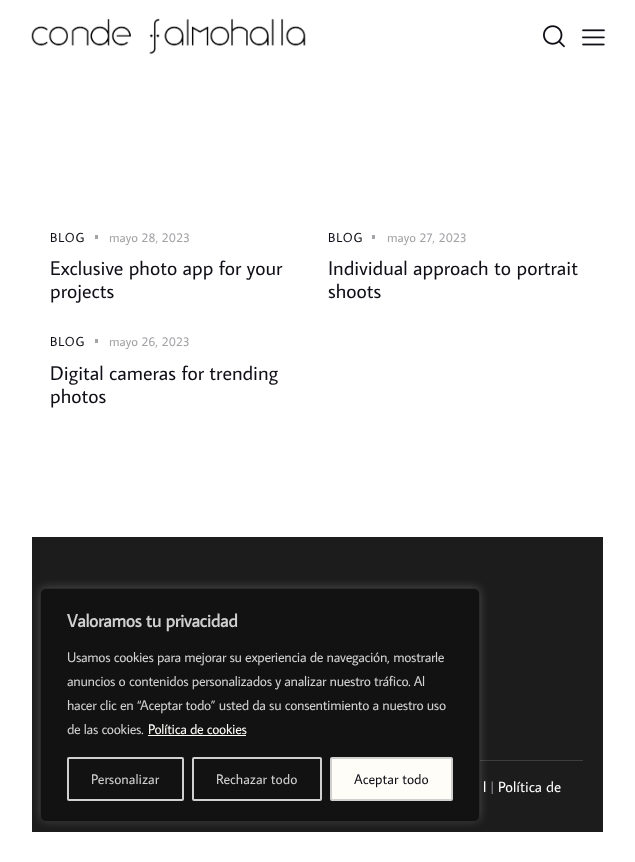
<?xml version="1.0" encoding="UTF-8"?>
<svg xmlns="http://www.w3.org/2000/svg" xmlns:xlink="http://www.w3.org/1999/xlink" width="635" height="862">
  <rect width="100%" height="100%" fill="#ffffff" />
  <image x="31" y="18" width="275" height="37" xlink:href="image1.png" />
  <image x="543" y="25" width="22" height="23" xlink:href="image2.png" />
  <image x="582" y="29" width="23" height="17" xlink:href="image3.png" />
  <rect x="95" y="235" width="3" height="4" fill="#a4a4a8" />
  <rect x="372" y="235" width="3" height="4" fill="#a4a4a8" />
  <rect x="95" y="339" width="3" height="4" fill="#a4a4a8" />
  <rect x="32" y="537" width="571" height="295" fill="#1c1c1c" />
  <rect x="480" y="760" width="103" height="1" fill="#3d3d3d" />
  <rect x="40" y="587" width="440" height="234" rx="6" fill="#acabab" fill-opacity="0.3" filter="blur(5px)" />
  <rect x="40.5" y="588.5" width="439" height="233" rx="5.5" fill="#121212" stroke="#2a2a2a" />
  <rect x="148" y="735" width="98" height="1" fill="#fffdf8" />
  <rect x="68" y="758" width="115" height="42" rx="1" fill="none" stroke="#d0d0d0" stroke-width="2" />
  <rect x="193" y="758" width="128" height="42" rx="1" fill="none" stroke="#d0d0d0" stroke-width="2" />
  <rect x="331" y="758" width="121" height="42" rx="1" fill="#fffdf8" stroke="#d0d0d0" stroke-width="2" />
  <text x="50" y="242" style="font-family: Average Sans; font-size: 13px; letter-spacing: 1px; fill: #100f17">BLOG</text>
  <text x="109" y="242" style="font-family: Average Sans; font-size: 13px; fill: #a4a4a8">mayo 28, 2023</text>
  <text x="50" y="275" style="font-family: Average Sans; font-size: 20px; fill: #100f17">Exclusive photo app for your</text>
  <text x="50" y="298" style="font-family: Average Sans; font-size: 20px; fill: #100f17">projects</text>
  <text x="328" y="242" style="font-family: Average Sans; font-size: 13px; letter-spacing: 1px; fill: #100f17">BLOG</text>
  <text x="387" y="242" style="font-family: Average Sans; font-size: 13px; fill: #a4a4a8">mayo 27, 2023</text>
  <text x="328" y="275" style="font-family: Average Sans; font-size: 20px; fill: #100f17">Individual approach to portrait</text>
  <text x="328" y="298" style="font-family: Average Sans; font-size: 20px; fill: #100f17">shoots</text>
  <text x="50" y="346" style="font-family: Average Sans; font-size: 13px; letter-spacing: 1px; fill: #100f17">BLOG</text>
  <text x="109" y="346" style="font-family: Average Sans; font-size: 13px; fill: #a4a4a8">mayo 26, 2023</text>
  <text x="50" y="380" style="font-family: Average Sans; font-size: 20px; fill: #100f17">Digital cameras for trending</text>
  <text x="50" y="403" style="font-family: Average Sans; font-size: 20px; fill: #100f17">photos</text>
  <text x="483" y="792" style="font-family: Average Sans; font-size: 15px; fill: #ffffff">l</text>
  <text x="490" y="792" style="font-family: Average Sans; font-size: 15px; fill: #96999f">|</text>
  <text x="498" y="792" style="font-family: Average Sans; font-size: 15px; fill: #ffffff">Política de</text>
  <text x="67" y="627" style="font-family: Average Sans; font-size: 18px; font-weight: bold; letter-spacing: -0.32px; fill: #d0d0d0">Valoramos tu privacidad</text>
  <text x="67" y="662" style="font-family: Average Sans; font-size: 14px; letter-spacing: -0.32px; fill: #d0d0d0">Usamos cookies para mejorar su experiencia de navegación, mostrarle</text>
  <text x="67" y="686" style="font-family: Average Sans; font-size: 14px; letter-spacing: -0.32px; fill: #d0d0d0">anuncios o contenidos personalizados y analizar nuestro tráfico. Al</text>
  <text x="67" y="710" style="font-family: Average Sans; font-size: 14px; letter-spacing: -0.32px; fill: #d0d0d0">hacer clic en “Aceptar todo” usted da su consentimiento a nuestro uso</text>
  <text x="67" y="734" style="font-family: Average Sans; font-size: 14px; letter-spacing: -0.32px; fill: #d0d0d0">de las cookies.</text>
  <text x="148" y="734" style="font-family: Average Sans; font-size: 14px; letter-spacing: -0.32px; fill: #fffdf8">Política de cookies</text>
  <text x="91" y="784" style="font-family: Average Sans; font-size: 14px; fill: #d0d0d0">Personalizar</text>
  <text x="216" y="784" style="font-family: Average Sans; font-size: 14px; fill: #d0d0d0">Rechazar todo</text>
  <text x="354" y="784" style="font-family: Average Sans; font-size: 14px; fill: #100f17">Aceptar todo</text>
</svg>
